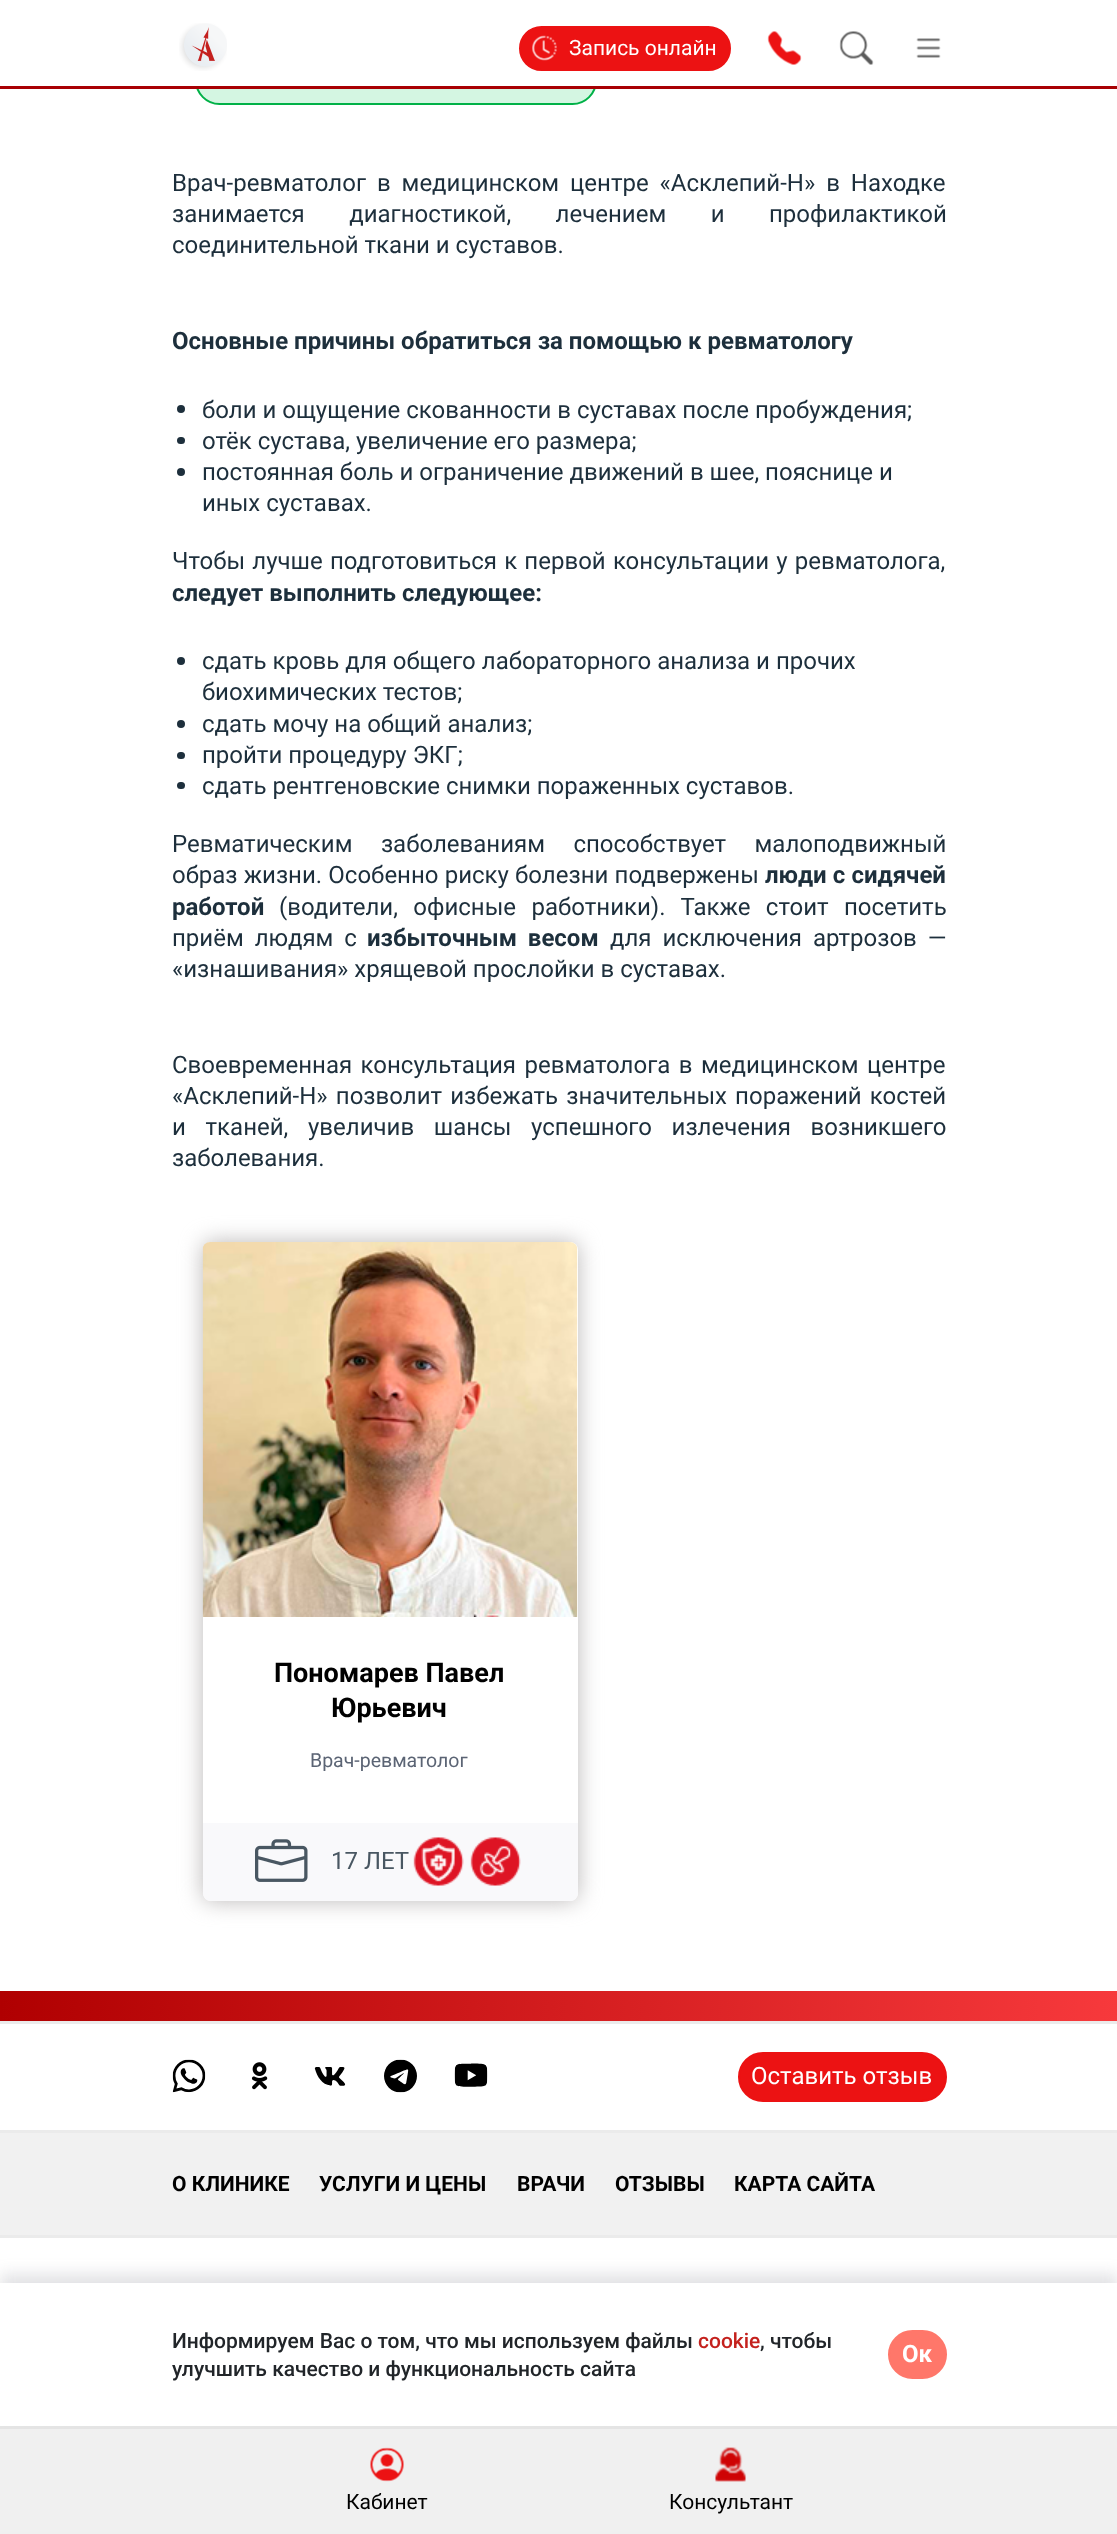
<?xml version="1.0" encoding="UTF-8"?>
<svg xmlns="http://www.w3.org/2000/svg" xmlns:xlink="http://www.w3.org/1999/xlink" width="1117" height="2534">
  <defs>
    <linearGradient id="g1" gradientUnits="userSpaceOnUse" x1="0" y1="2006" x2="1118" y2="2006"><stop offset="0" stop-color="#b00001" /><stop offset="1" stop-color="#f7393c" /></linearGradient>
  </defs>
  <rect width="100%" height="100%" fill="#ffffff" />
  <rect x="196" y="57" width="400" height="47" rx="23.5" fill="#d4f6e2" stroke="#00b147" stroke-width="2" />
  <rect x="195" y="56" width="402" height="30" fill="#ffffff" />
  <rect y="86" width="1117" height="3" fill="#a80003" />
  <image x="179" y="23" width="48" height="48" xlink:href="image1.png" />
  <rect x="520" y="27" width="210" height="43" rx="21.5" fill="#ec1213" stroke="#ec1213" stroke-width="2" />
  <image x="532" y="35" width="25" height="26" xlink:href="image2.png" />
  <image x="767" y="31" width="35" height="34" xlink:href="image3.png" />
  <image x="839" y="31" width="35" height="34" xlink:href="image4.png" />
  <image x="916" y="38" width="25" height="20" xlink:href="image5.png" />
  <rect y="2274" width="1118" height="144" fill="#6d6d7e" fill-opacity="0.2" filter="blur(7.5px)" />
  <rect y="2429" width="1117" height="105" fill="#f0f0f0" />
  <rect y="2426" width="1117" height="3" fill="#e4e4e4" />
  <image x="370" y="2447" width="34" height="35" xlink:href="image6.png" />
  <image x="715" y="2447" width="31" height="35" xlink:href="image7.png" />
  <circle cx="181" cy="409" r="4" fill="#1d2f3c" />
  <rect x="177" y="437" width="8" height="7" rx="3.5" fill="#1d2f3c" />
  <circle cx="181" cy="472" r="4" fill="#1d2f3c" />
  <circle cx="181" cy="661" r="4" fill="#1d2f3c" />
  <circle cx="181" cy="724" r="4" fill="#1d2f3c" />
  <rect x="177" y="752" width="8" height="7" rx="3.5" fill="#1d2f3c" />
  <rect x="177" y="782" width="8" height="7" rx="3.5" fill="#1d2f3c" />
  <rect x="203" y="1242" width="375" height="659" rx="8" fill="#bbb8b8" filter="blur(11px)" />
  <rect x="203" y="1242" width="375" height="659" rx="8" fill="#ffffff" />
  <image x="202" y="1242" width="376" height="375" xlink:href="image8.png" />
  <path d="M 203 1823 h 375 v 70 c 0 4.5 -3.5 8 -8 8 h -359 c -4.5 0 -8 -3.5 -8 -8 z" fill="#f9f9fb" />
  <image x="255" y="1839" width="53" height="43" xlink:href="image9.png" />
  <image x="413" y="1837" width="51" height="49" xlink:href="image10.png" />
  <image x="470" y="1837" width="51" height="49" xlink:href="image11.png" />
  <rect y="1991" width="1117" height="30" fill="url(#g1)" />
  <rect y="2021" width="1117" height="3" fill="#ebebeb" />
  <image x="172" y="2059" width="34" height="34" xlink:href="image12.png" />
  <image x="251" y="2062" width="17" height="28" xlink:href="image13.png" />
  <image x="314" y="2067" width="32" height="19" xlink:href="image14.png" />
  <image x="384" y="2059" width="33" height="34" xlink:href="image15.png" />
  <image x="454" y="2063" width="34" height="24" xlink:href="image16.png" />
  <rect x="739" y="2053" width="207" height="48" rx="24" fill="#ec1213" stroke="#ec1213" stroke-width="2" />
  <rect y="2133" width="1117" height="102" fill="#f1f1f1" />
  <rect y="2130" width="1117" height="3" fill="#ebebeb" />
  <rect y="2235" width="1117" height="3" fill="#ebebeb" />
  <rect y="2283" width="1117" height="143" fill="#ffffff" />
  <rect x="889" y="2331" width="57" height="47" rx="23.5" fill="#ff776a" stroke="#ff776a" stroke-width="2" />
  <text x="569" y="55" style="font-family: Roboto; font-size: 21px; fill: #ffffff">Запись онлайн</text>
  <text x="346" y="2509" style="font-family: Roboto; font-size: 21px; fill: #000000">Кабинет</text>
  <text x="669" y="2509" style="font-family: Roboto; font-size: 21px; fill: #000000">Консультант</text>
  <text x="172" y="191" word-spacing="5" style="font-family: Roboto; font-size: 24px; fill: #1d2f3c">Врач-ревматолог в медицинском центре «Асклепий-Н» в Находке</text>
  <text x="172" y="222" word-spacing="38.5" style="font-family: Roboto; font-size: 24px; fill: #1d2f3c">занимается диагностикой, лечением и профилактикой</text>
  <text x="172" y="253" style="font-family: Roboto; font-size: 24px; fill: #1d2f3c">соединительной ткани и суставов.</text>
  <text x="172" y="349" style="font-family: Roboto; font-size: 24px; font-weight: bold; fill: #1d2f3c">Основные причины обратиться за помощью к ревматологу</text>
  <text x="202" y="418" style="font-family: Roboto; font-size: 24px; fill: #1d2f3c">боли и ощущение скованности в суставах после пробуждения;</text>
  <text x="202" y="449" style="font-family: Roboto; font-size: 24px; fill: #1d2f3c">отёк сустава, увеличение его размера;</text>
  <text x="202" y="480" style="font-family: Roboto; font-size: 24px; fill: #1d2f3c">постоянная боль и ограничение движений в шее, пояснице и</text>
  <text x="202" y="511" style="font-family: Roboto; font-size: 24px; fill: #1d2f3c">иных суставах.</text>
  <text x="172" y="569" word-spacing="1.25" style="font-family: Roboto; font-size: 24px; fill: #1d2f3c">Чтобы лучше подготовиться к первой консультации у ревматолога,</text>
  <text x="172" y="601" style="font-family: Roboto; font-size: 24px; font-weight: bold; fill: #1d2f3c">следует выполнить следующее:</text>
  <text x="202" y="669" style="font-family: Roboto; font-size: 24px; fill: #1d2f3c">сдать кровь для общего лабораторного анализа и прочих</text>
  <text x="202" y="700" style="font-family: Roboto; font-size: 24px; fill: #1d2f3c">биохимических тестов;</text>
  <text x="202" y="732" style="font-family: Roboto; font-size: 24px; fill: #1d2f3c">сдать мочу на общий анализ;</text>
  <text x="202" y="763" style="font-family: Roboto; font-size: 24px; fill: #1d2f3c">пройти процедуру ЭКГ;</text>
  <text x="202" y="794" style="font-family: Roboto; font-size: 24px; fill: #1d2f3c">сдать рентгеновские снимки пораженных суставов.</text>
  <text x="172" y="852" word-spacing="22.5" style="font-family: Roboto; font-size: 24px; fill: #1d2f3c">Ревматическим заболеваниям способствует малоподвижный</text>
  <text x="172" y="883" word-spacing="0.25" style="font-family: Roboto; font-size: 24px; fill: #1d2f3c">образ жизни. Особенно риску болезни подвержены</text>
  <text x="765" y="883" word-spacing="0.25" style="font-family: Roboto; font-size: 24px; font-weight: bold; fill: #1d2f3c">люди с сидячей</text>
  <text x="172" y="915" style="font-family: Roboto; font-size: 24px; font-weight: bold; fill: #1d2f3c">работой</text>
  <text x="279" y="915" word-spacing="9.5" style="font-family: Roboto; font-size: 24px; fill: #1d2f3c">(водители, офисные работники). Также стоит посетить</text>
  <text x="172" y="946" word-spacing="5" style="font-family: Roboto; font-size: 24px; fill: #1d2f3c">приём людям с</text>
  <text x="367" y="946" word-spacing="5" style="font-family: Roboto; font-size: 24px; font-weight: bold; fill: #1d2f3c">избыточным весом</text>
  <text x="610" y="946" word-spacing="5" style="font-family: Roboto; font-size: 24px; fill: #1d2f3c">для исключения артрозов —</text>
  <text x="172" y="977" style="font-family: Roboto; font-size: 24px; fill: #1d2f3c">«изнашивания» хрящевой прослойки в суставах.</text>
  <text x="172" y="1073" word-spacing="2.5" style="font-family: Roboto; font-size: 24px; fill: #1d2f3c">Своевременная консультация ревматолога в медицинском центре</text>
  <text x="172" y="1104" word-spacing="2.25" style="font-family: Roboto; font-size: 24px; fill: #1d2f3c">«Асклепий-Н» позволит избежать значительных поражений костей</text>
  <text x="172" y="1135" word-spacing="13.75" style="font-family: Roboto; font-size: 24px; fill: #1d2f3c">и тканей, увеличив шансы успешного излечения возникшего</text>
  <text x="172" y="1166" style="font-family: Roboto; font-size: 24px; fill: #1d2f3c">заболевания.</text>
  <text x="274" y="1682" style="font-family: Roboto; font-size: 27px; font-weight: bold; fill: #000000">Пономарев Павел</text>
  <text x="331" y="1717" style="font-family: Roboto; font-size: 27px; font-weight: bold; fill: #000000">Юрьевич</text>
  <text x="310" y="1767" style="font-family: Roboto; font-size: 19.5px; fill: #5b6474">Врач-ревматолог</text>
  <text x="331" y="1869" style="font-family: Roboto; font-size: 24px; fill: #495762">17 ЛЕТ</text>
  <text x="751" y="2084" style="font-family: Roboto; font-size: 24px; fill: #ffffff">Оставить отзыв</text>
  <text x="172" y="2191" style="font-family: Roboto; font-size: 21px; font-weight: bold; fill: #000000">О КЛИНИКЕ</text>
  <text x="319" y="2191" style="font-family: Roboto; font-size: 21px; font-weight: bold; fill: #000000">УСЛУГИ И ЦЕНЫ</text>
  <text x="517" y="2191" style="font-family: Roboto; font-size: 21px; font-weight: bold; fill: #000000">ВРАЧИ</text>
  <text x="615" y="2191" style="font-family: Roboto; font-size: 21px; font-weight: bold; fill: #000000">ОТЗЫВЫ</text>
  <text x="734" y="2191" style="font-family: Roboto; font-size: 21px; font-weight: bold; fill: #000000">КАРТА САЙТА</text>
  <text x="172" y="2348" style="font-family: Roboto; font-size: 21px; font-weight: 500; fill: #212529">Информируем Вас о том, что мы используем файлы</text>
  <text x="698" y="2348" style="font-family: Roboto; font-size: 21px; font-weight: 500; fill: #c4211d">cookie</text>
  <text x="760" y="2348" style="font-family: Roboto; font-size: 21px; font-weight: 500; fill: #212529">, чтобы</text>
  <text x="172" y="2376" style="font-family: Roboto; font-size: 21px; font-weight: 500; fill: #212529">улучшить качество и функциональность сайта</text>
  <text x="902" y="2362" style="font-family: Roboto; font-size: 24px; font-weight: bold; fill: #ffffff">Ок</text>
</svg>
